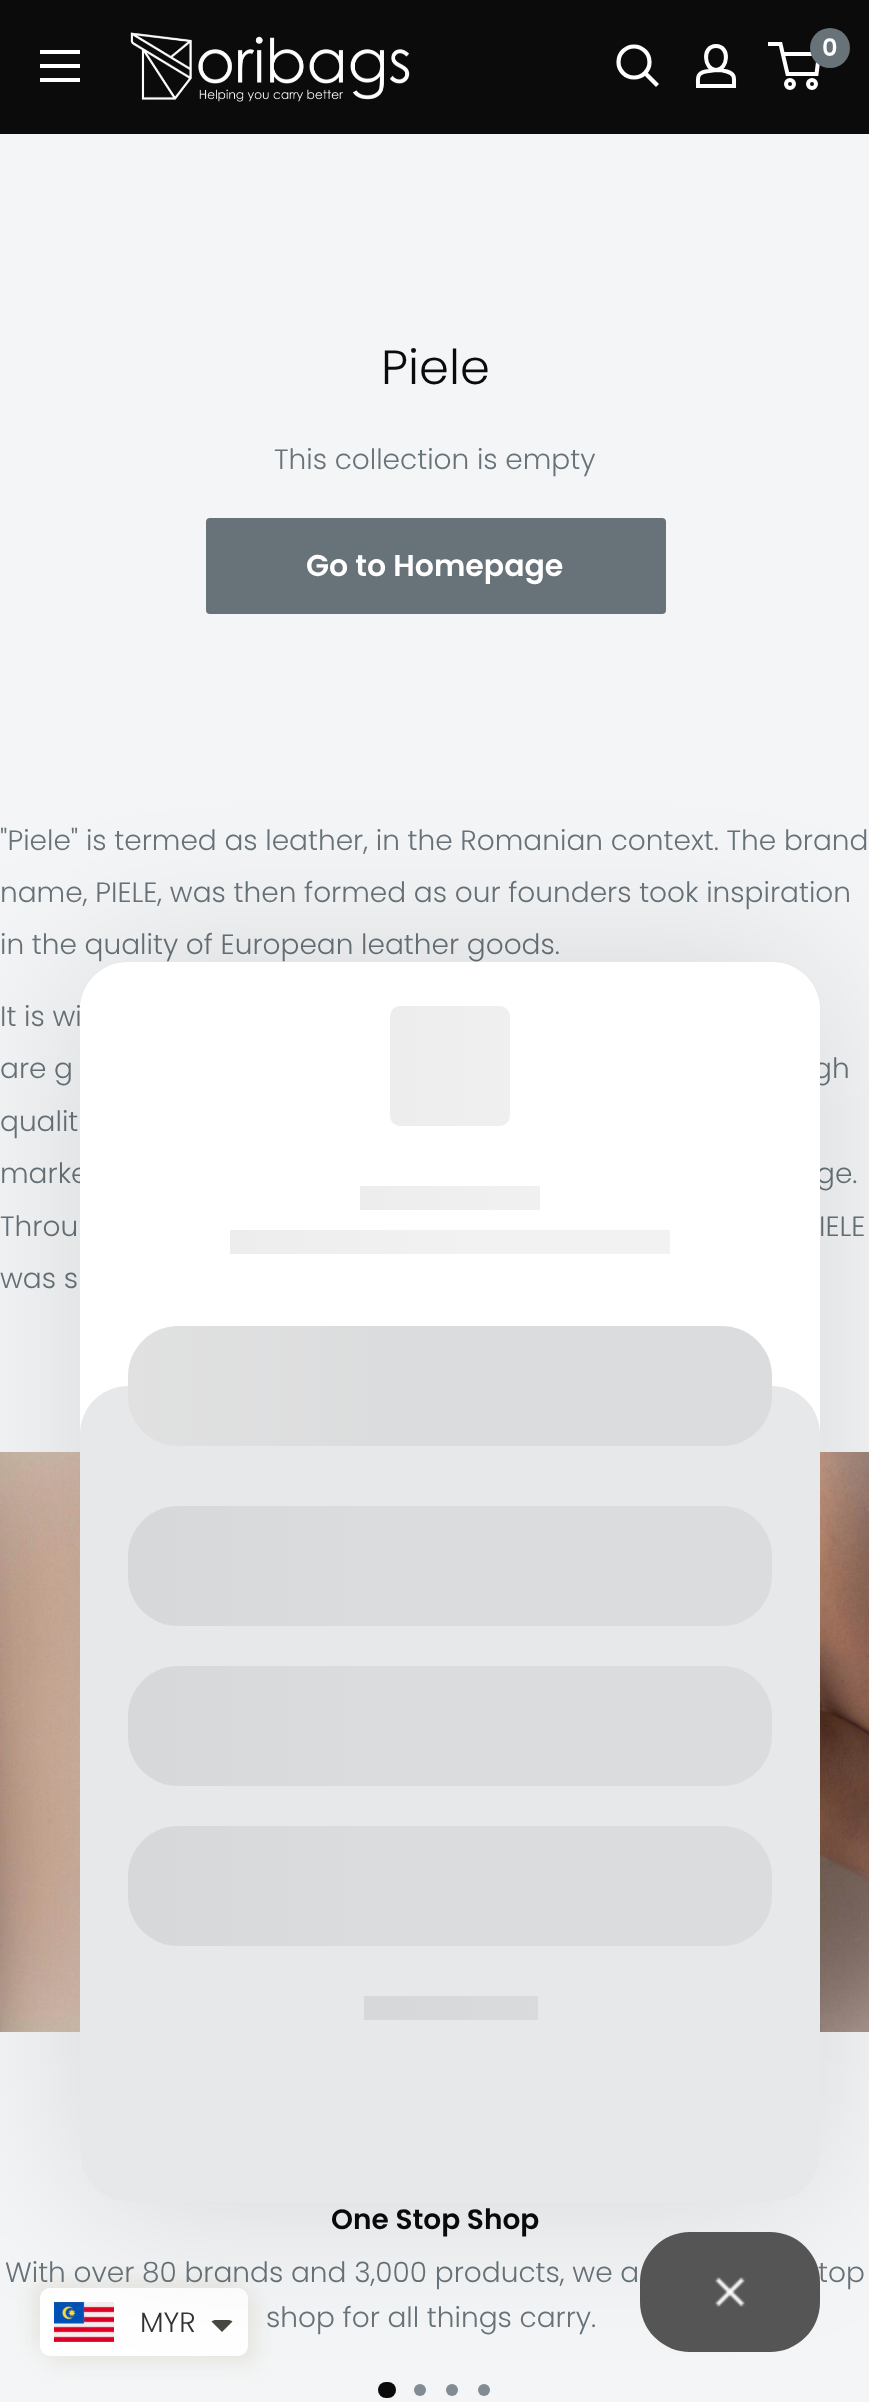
<?xml version="1.0" encoding="UTF-8"?>
<svg xmlns="http://www.w3.org/2000/svg" xmlns:xlink="http://www.w3.org/1999/xlink" width="869" height="2402">
  <rect width="100%" height="100%" fill="#f3f5f6" />
  <rect width="869" height="134" fill="#0b0b0b" />
  <image x="130" y="32" width="280" height="70" xlink:href="image1.png" />
  <path d="M 656 84 l -10.5 -10.5" fill="none" stroke="#ffffff" stroke-width="4.2" stroke-linecap="square" />
  <circle cx="634" cy="62" r="15.5" fill="none" stroke="#ffffff" stroke-width="4.2" />
  <path d="M 716 70 c 4 0 7.5 0.5 11 1.5 c 8.5 2.5 7 7 7 14.5 h -36 c 0 -8 -1.5 -12.5 7.5 -14.5 z m 0 0 c -12 0 -14.5 -24 0 -24 c 14.5 0 12 24 0 24 z" fill="none" stroke="#ffffff" stroke-width="4" />
  <circle cx="790" cy="84" r="4" fill="none" stroke="#ffffff" stroke-width="4" />
  <circle cx="812" cy="84" r="4" fill="none" stroke="#ffffff" stroke-width="4" />
  <path d="M 782.5 54 h 36.5 l -2.5 20 h -29 l -7 -30 h -12.5" fill="none" stroke="#ffffff" stroke-width="4" />
  <circle cx="830" cy="48" r="20" fill="#677279" />
  <path d="M 40 78 h 40 v 4 h -40 z m 0 -28 h 40 v 4 h -40 z m 0 14 h 40 v 4 h -40 z" fill="#ffffff" fill-rule="evenodd" />
  <rect x="206" y="518" width="460" height="96" rx="4" fill="#677279" />
  <image x="0" y="1452" width="869" height="580" xlink:href="image2.png" />
  <rect x="378" y="2382" width="18" height="16" rx="8" fill="#0b0b0b" />
  <circle cx="420" cy="2390" r="6" fill="#838c92" />
  <circle cx="452" cy="2390" r="6" fill="#838c92" />
  <circle cx="484" cy="2390" r="6" fill="#838c92" />
  <rect x="32" y="2280" width="208" height="68" rx="10" fill="#e8e8e2" filter="blur(9px)" />
  <rect x="48" y="2296" width="208" height="68" rx="10" fill="#e8e8e2" filter="blur(9px)" />
  <text x="822" y="56" style="font-family: Poppins; font-size: 24px; font-weight: 600; fill: #ffffff">0</text>
  <text x="381" y="384" style="font-family: Poppins; font-size: 48px; font-weight: 300; fill: #0b0b0b">Piele</text>
  <text x="274" y="469" style="font-family: Poppins; font-size: 28px; font-weight: 300; fill: #677279">This collection is empty</text>
  <text x="306" y="576" style="font-family: Poppins; font-size: 30px; font-weight: 600; fill: #ffffff">Go to Homepage</text>
  <text x="0" y="850" style="font-family: Poppins; font-size: 28px; font-weight: 300; fill: #677279">"Piele" is termed as leather, in the Romanian context. The brand</text>
  <text x="0" y="902" style="font-family: Poppins; font-size: 28px; font-weight: 300; fill: #677279">name, PIELE, was then formed as our founders took inspiration</text>
  <text x="0" y="954" style="font-family: Poppins; font-size: 28px; font-weight: 300; fill: #677279">in the quality of European leather goods.</text>
  <text x="0" y="1026" style="font-family: Poppins; font-size: 28px; font-weight: 300; fill: #677279">It is wi</text>
  <text x="0" y="1078" style="font-family: Poppins; font-size: 28px; font-weight: 300; fill: #677279">are g</text>
  <text x="813" y="1078" style="font-family: Poppins; font-size: 28px; font-weight: 300; fill: #677279">gh</text>
  <text x="0" y="1131" style="font-family: Poppins; font-size: 28px; font-weight: 300; fill: #677279">qualit</text>
  <text x="0" y="1183" style="font-family: Poppins; font-size: 28px; font-weight: 300; fill: #677279">marke</text>
  <text x="816" y="1183" style="font-family: Poppins; font-size: 28px; font-weight: 300; fill: #677279">ge.</text>
  <text x="0" y="1236" style="font-family: Poppins; font-size: 28px; font-weight: 300; fill: #677279">Throu</text>
  <text x="819" y="1236" style="font-family: Poppins; font-size: 28px; font-weight: 300; fill: #677279">IELE</text>
  <text x="0" y="1288" style="font-family: Poppins; font-size: 28px; font-weight: 300; fill: #677279">was s</text>
  <text x="331" y="2229" style="font-family: Poppins; font-size: 28px; font-weight: 600; fill: #0b0b0b">One Stop Shop</text>
  <text x="5" y="2282" style="font-family: Poppins; font-size: 28px; font-weight: 300; fill: #677279">With over 80 brands and 3,000 products, we a</text>
  <text x="818" y="2282" style="font-family: Poppins; font-size: 28px; font-weight: 300; fill: #677279">top</text>
  <text x="266" y="2327" style="font-family: Poppins; font-size: 28px; font-weight: 300; fill: #677279">shop for all things carry.</text>
  <rect x="40" y="2288" width="208" height="68" rx="10" fill="#ffffff" />
  <image x="54" y="2302" width="60" height="40" xlink:href="image4.png" />
  <text x="140" y="2332" style="font-family: Poppins; font-size: 28px; font-weight: 300; fill: #333333">MYR</text>
  <path d="M 216 2320 c -2 0 -3 0.5 -4.5 1.5 l 10.5 10.5 l 10.5 -10.5 c -1.5 -1 -2.5 -1.5 -4.5 -1.5 z" fill="#474942" />
  <rect x="80" y="962" width="740" height="1240" rx="48" fill="#000000" fill-opacity="0.12" filter="blur(80px)" />
  <rect x="80" y="962" width="740" height="1240" rx="48" fill="#ffffff" />
  <image x="80" y="963" width="740" height="1239" xlink:href="image3.png" />
  <rect x="640" y="2232" width="180" height="120" rx="50" fill="#555555" />
  <image x="715" y="2277" width="30" height="30" xlink:href="image5.png" />
</svg>
